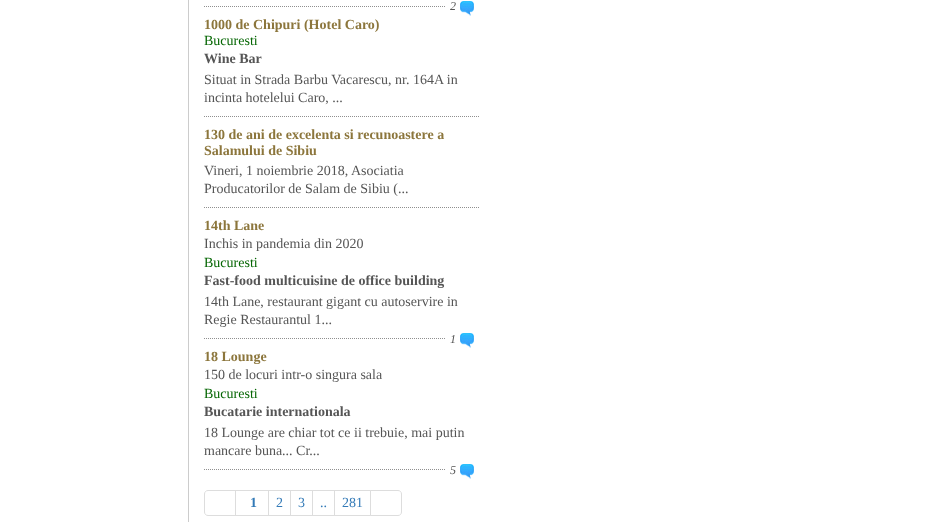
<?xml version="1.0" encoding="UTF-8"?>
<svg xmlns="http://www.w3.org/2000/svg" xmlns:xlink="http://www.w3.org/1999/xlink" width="927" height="522">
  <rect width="100%" height="100%" fill="#ffffff" />
  <rect x="188" width="1" height="522" fill="#cccccc" />
  <path d="M 204 6.5 h 276" fill="none" stroke="#8f8f8f" stroke-dasharray="1 1" />
  <rect x="446" y="6" width="33" height="1" fill="#ffffff" />
  <image x="460" y="1" width="14" height="15" xlink:href="image1.png" />
  <path d="M 204 116.5 h 276" fill="none" stroke="#8f8f8f" stroke-dasharray="1 1" />
  <path d="M 204 207.5 h 276" fill="none" stroke="#8f8f8f" stroke-dasharray="1 1" />
  <path d="M 204 338.5 h 276" fill="none" stroke="#8f8f8f" stroke-dasharray="1 1" />
  <rect x="446" y="338" width="33" height="1" fill="#ffffff" />
  <image x="460" y="333" width="14" height="15" xlink:href="image1.png" />
  <path d="M 204 469.5 h 276" fill="none" stroke="#8f8f8f" stroke-dasharray="1 1" />
  <rect x="446" y="469" width="33" height="1" fill="#ffffff" />
  <image x="460" y="464" width="14" height="15" xlink:href="image1.png" />
  <path d="M 208 490.5 h 27.5 v 25 h -27.5 c -2 0 -3.5 -1.5 -3.5 -3.5 v -18 c 0 -2 1.5 -3.5 3.5 -3.5 z" fill="none" stroke="#dddddd" />
  <rect x="235.5" y="490.5" width="33" height="25" fill="none" stroke="#dddddd" />
  <rect x="268.5" y="490.5" width="22" height="25" fill="none" stroke="#dddddd" />
  <rect x="290.5" y="490.5" width="22" height="25" fill="none" stroke="#dddddd" />
  <rect x="312.5" y="490.5" width="22" height="25" fill="none" stroke="#dddddd" />
  <rect x="334.5" y="490.5" width="36" height="25" fill="none" stroke="#dddddd" />
  <path d="M 370.5 490.5 h 27.5 c 2 0 3.5 1.5 3.5 3.5 v 18 c 0 2 -1.5 3.5 -3.5 3.5 h -27.5 z" fill="#ffffff" stroke="#dddddd" />
  <text x="450" y="10" style="font-family: Liberation Serif; font-size: 12px; font-style: italic; fill: #555555">2</text>
  <text x="204" y="29" style="font-family: Liberation Serif; font-size: 14px; font-weight: bold; fill: #8c763c">1000 de Chipuri (Hotel Caro)</text>
  <text x="204" y="45" style="font-family: Liberation Serif; font-size: 14px; fill: #056603">Bucuresti</text>
  <text x="204" y="63" style="font-family: Liberation Serif; font-size: 14px; font-weight: bold; fill: #555555">Wine Bar</text>
  <text x="204" y="84" style="font-family: Liberation Serif; font-size: 14px; fill: #555555">Situat in Strada Barbu Vacarescu, nr. 164A in</text>
  <text x="204" y="102" style="font-family: Liberation Serif; font-size: 14px; fill: #555555">incinta hotelelui Caro, ...</text>
  <text x="204" y="139" style="font-family: Liberation Serif; font-size: 14px; font-weight: bold; fill: #8c763c">130 de ani de excelenta si recunoastere a</text>
  <text x="204" y="155" style="font-family: Liberation Serif; font-size: 14px; font-weight: bold; fill: #8c763c">Salamului de Sibiu</text>
  <text x="204" y="175" style="font-family: Liberation Serif; font-size: 14px; fill: #555555">Vineri, 1 noiembrie 2018, Asociatia</text>
  <text x="204" y="193" style="font-family: Liberation Serif; font-size: 14px; fill: #555555">Producatorilor de Salam de Sibiu (...</text>
  <text x="204" y="230" style="font-family: Liberation Serif; font-size: 14px; font-weight: bold; fill: #8c763c">14th Lane</text>
  <text x="204" y="248" style="font-family: Liberation Serif; font-size: 14px; fill: #555555">Inchis in pandemia din 2020</text>
  <text x="204" y="267" style="font-family: Liberation Serif; font-size: 14px; fill: #056603">Bucuresti</text>
  <text x="204" y="285" style="font-family: Liberation Serif; font-size: 14px; font-weight: bold; fill: #555555">Fast-food multicuisine de office building</text>
  <text x="204" y="306" style="font-family: Liberation Serif; font-size: 14px; fill: #555555">14th Lane, restaurant gigant cu autoservire in</text>
  <text x="204" y="324" style="font-family: Liberation Serif; font-size: 14px; fill: #555555">Regie Restaurantul 1...</text>
  <text x="450" y="343" style="font-family: Liberation Serif; font-size: 12px; font-style: italic; fill: #555555">1</text>
  <text x="204" y="361" style="font-family: Liberation Serif; font-size: 14px; font-weight: bold; fill: #8c763c">18 Lounge</text>
  <text x="204" y="379" style="font-family: Liberation Serif; font-size: 14px; fill: #555555">150 de locuri intr-o singura sala</text>
  <text x="204" y="398" style="font-family: Liberation Serif; font-size: 14px; fill: #056603">Bucuresti</text>
  <text x="204" y="416" style="font-family: Liberation Serif; font-size: 14px; font-weight: bold; fill: #555555">Bucatarie internationala</text>
  <text x="204" y="437" style="font-family: Liberation Serif; font-size: 14px; fill: #555555">18 Lounge are chiar tot ce ii trebuie, mai putin</text>
  <text x="204" y="455" style="font-family: Liberation Serif; font-size: 14px; fill: #555555">mancare buna... Cr...</text>
  <text x="450" y="474" style="font-family: Liberation Serif; font-size: 12px; font-style: italic; fill: #555555">5</text>
  <text x="250" y="507" style="font-family: Liberation Serif; font-size: 14px; font-weight: bold; fill: #337ab7">1</text>
  <text x="276" y="507" style="font-family: Liberation Serif; font-size: 14px; fill: #337ab7">2</text>
  <text x="298" y="507" style="font-family: Liberation Serif; font-size: 14px; fill: #337ab7">3</text>
  <text x="320" y="507" style="font-family: Liberation Serif; font-size: 14px; fill: #337ab7">..</text>
  <text x="342" y="507" style="font-family: Liberation Serif; font-size: 14px; fill: #337ab7">281</text>
</svg>
